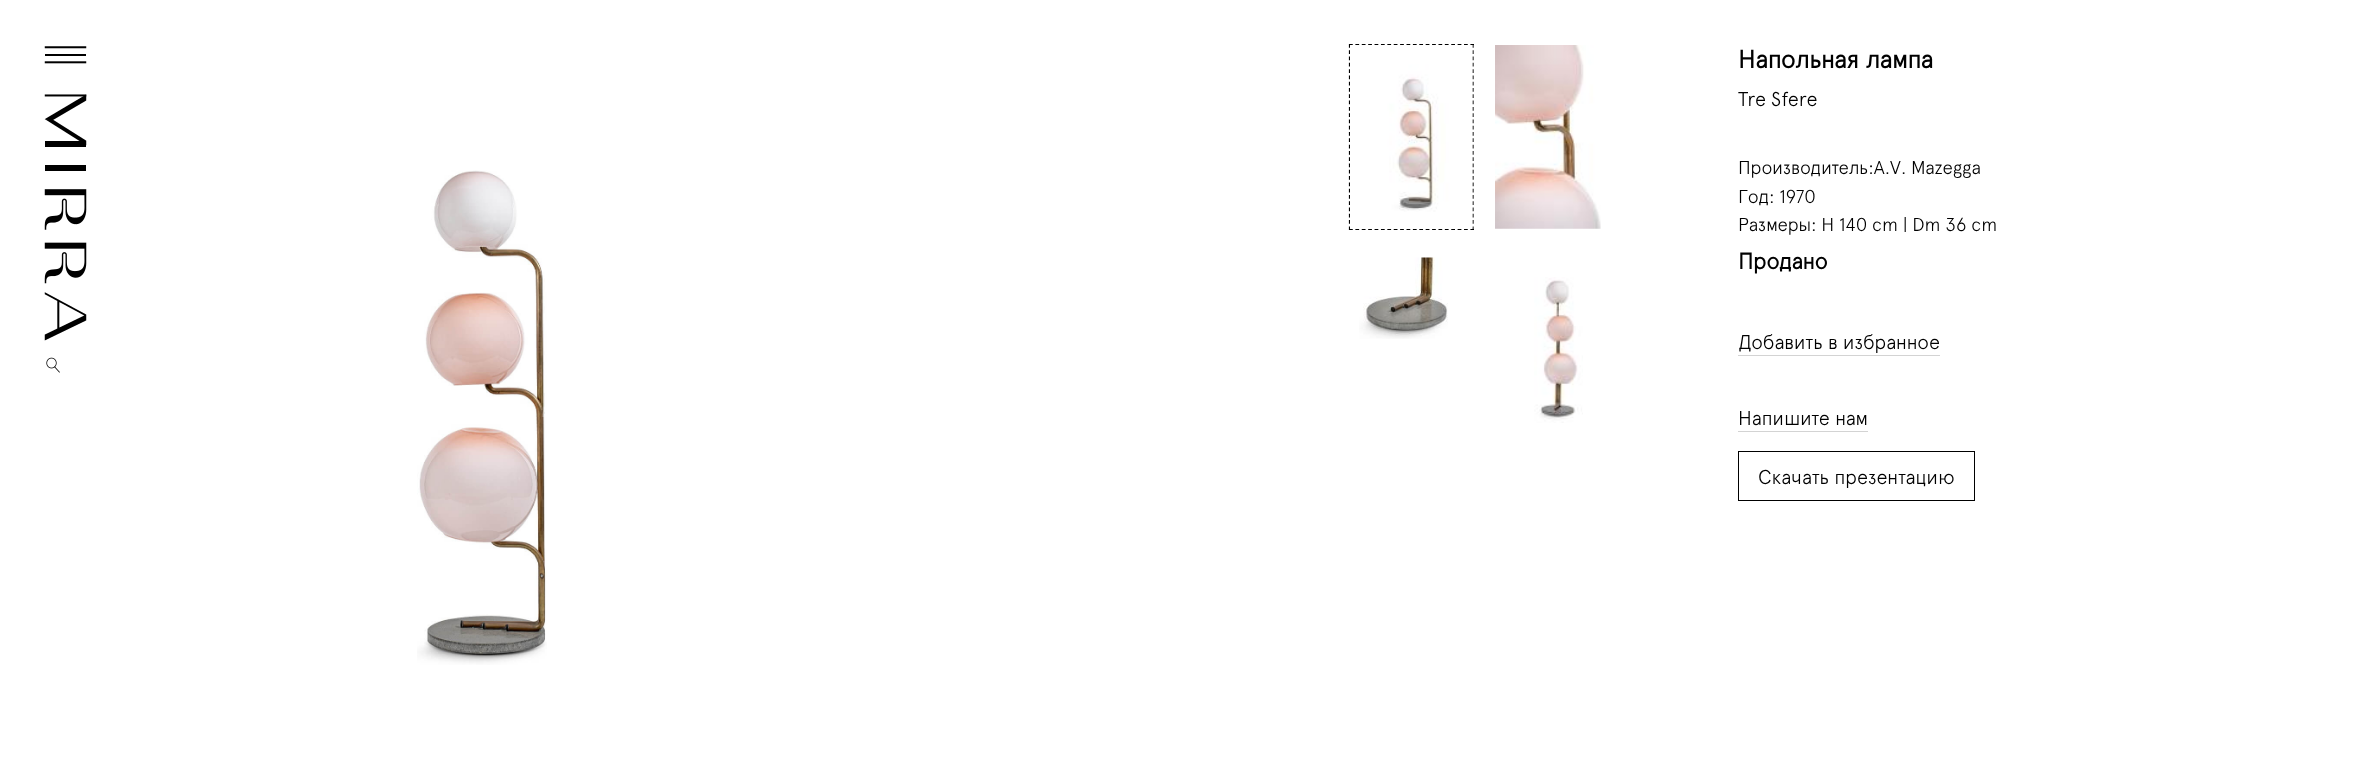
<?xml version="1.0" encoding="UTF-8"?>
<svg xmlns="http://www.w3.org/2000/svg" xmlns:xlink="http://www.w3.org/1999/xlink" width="2353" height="767">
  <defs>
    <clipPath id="clip1"><rect x="238" y="44" width="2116" height="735" /></clipPath>
  </defs>
  <rect width="100%" height="100%" fill="#ffffff" />
  <image x="44" y="46" width="43" height="327" xlink:href="image1.png" />
  <image x="417" y="170" width="130" height="495" xlink:href="image2.png" />
  <g clip-path="url(#clip1)">
    <path d="M 1349 44.5 h 125" fill="none" stroke="#000000" stroke-width="1.2" stroke-dasharray="3.75 2.64" />
  </g>
  <path d="M 1473 44 v 186" fill="none" stroke="#000000" stroke-width="1.2" stroke-dasharray="3.75 2.54" />
  <path d="M 1349 229.5 h 125" fill="none" stroke="#000000" stroke-width="1.2" stroke-dasharray="3.75 2.64" />
  <path d="M 1349.5 44 v 186" fill="none" stroke="#000000" stroke-width="1.2" stroke-dasharray="3.75 2.54" />
  <image x="1350" y="45" width="123" height="184" xlink:href="image3.png" />
  <image x="1495" y="45" width="106" height="184" xlink:href="image4.png" />
  <image x="1359" y="257" width="89" height="82" xlink:href="image5.png" />
  <image x="1534" y="277" width="49" height="146" xlink:href="image6.png" />
  <rect x="1738" y="355" width="202" height="1" fill="#d3d3d3" />
  <rect x="1738" y="431" width="130" height="1" fill="#d3d3d3" />
  <rect x="1738.5" y="451.5" width="236" height="49" fill="none" stroke="#000000" />
  <text x="1738" y="68" style="font-family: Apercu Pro; font-size: 25px; font-weight: bold; fill: #000000">Напольная лампа</text>
  <text x="1738" y="106" style="font-family: Apercu Pro; font-size: 20px; font-weight: 300; fill: #000000">Tre Sfere</text>
  <text x="1738" y="174" style="font-family: Apercu Pro; font-size: 18.75px; font-weight: 300; fill: #000000">Производитель:A.V. Mazegga</text>
  <text x="1738" y="203" style="font-family: Apercu Pro; font-size: 18.75px; font-weight: 300; fill: #000000">Год: 1970</text>
  <text x="1738" y="231" style="font-family: Apercu Pro; font-size: 18.75px; font-weight: 300; fill: #000000">Размеры: H 140 cm | Dm 36 cm</text>
  <text x="1738" y="269" style="font-family: Apercu Pro; font-size: 22.5px; font-weight: bold; fill: #000000">Продано</text>
  <text x="1738" y="349" style="font-family: Apercu Pro; font-size: 20px; font-weight: 300; fill: #000000">Добавить в избранное</text>
  <text x="1738" y="425" style="font-family: Apercu Pro; font-size: 20px; font-weight: 300; fill: #000000">Напишите нам</text>
  <text x="1758" y="484" style="font-family: Apercu Pro; font-size: 20px; font-weight: 300; fill: #000000">Скачать презентацию</text>
</svg>
